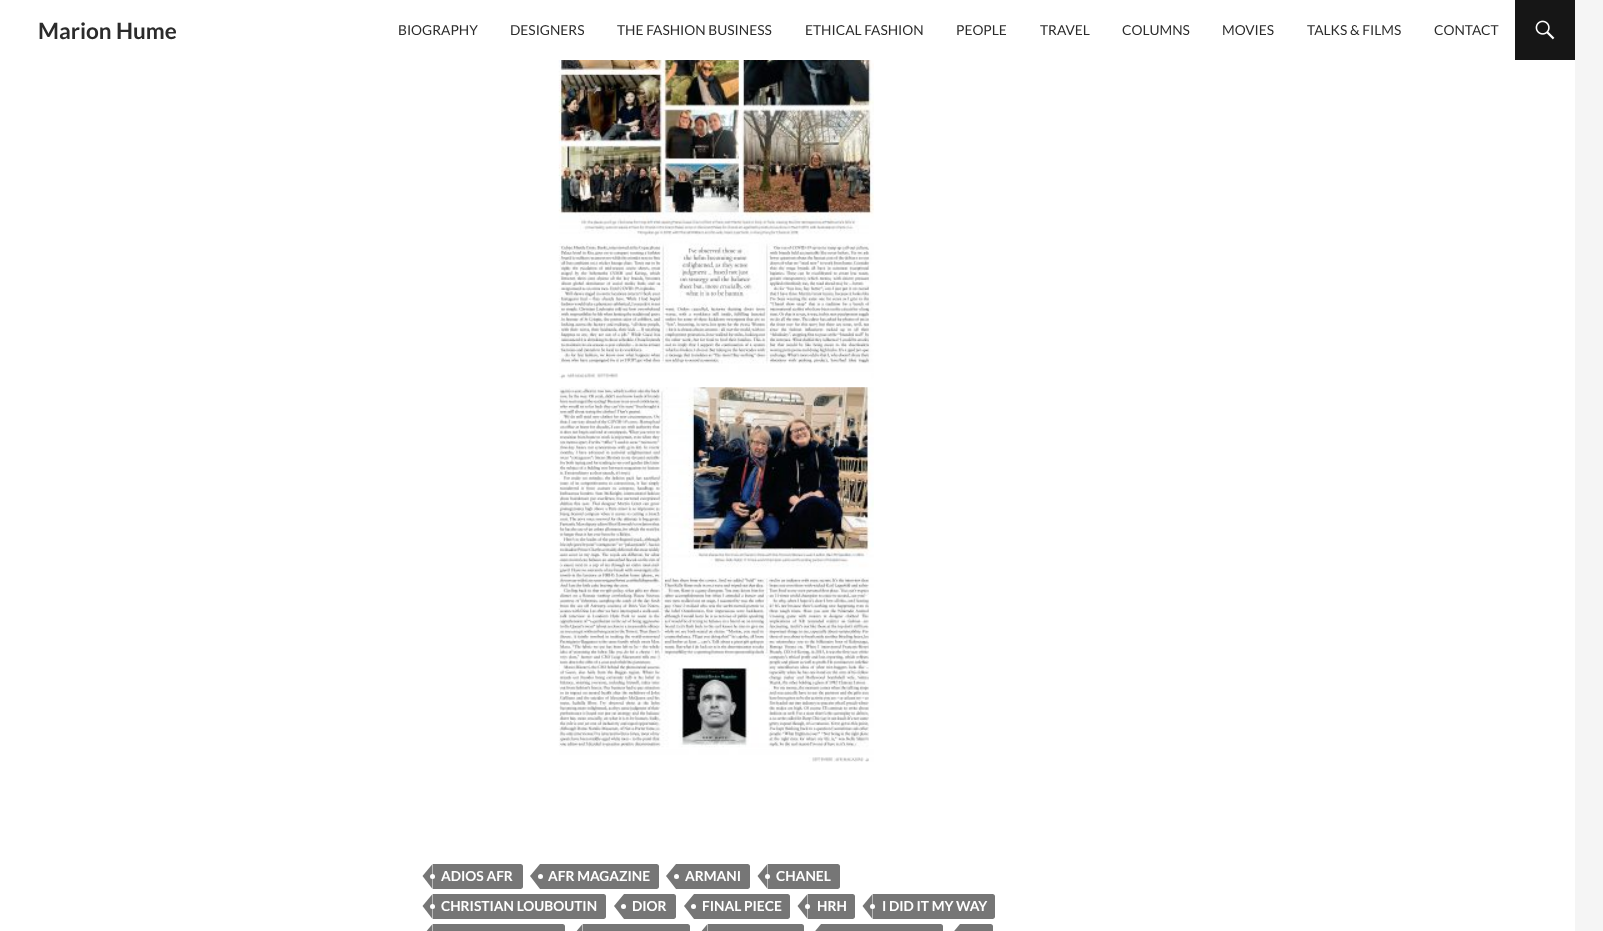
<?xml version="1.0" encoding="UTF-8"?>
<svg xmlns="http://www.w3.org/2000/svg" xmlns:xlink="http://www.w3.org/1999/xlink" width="1603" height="931">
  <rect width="100%" height="100%" fill="#f5f5f5" />
  <rect y="60" width="1575" height="871" fill="#ffffff" />
  <rect width="1515" height="60" fill="#ffffff" />
  <rect x="1515" width="60" height="60" fill="#161616" />
  <image x="1535" y="20" width="20" height="20" xlink:href="image1.png" />
  <image x="558" y="60" width="316" height="319" xlink:href="image2.png" />
  <image x="558" y="387" width="316" height="375" xlink:href="image3.png" />
  <path d="M 433 864 h 87.5 c 1.5 0 2.5 1 2.5 2.5 v 20 c 0 1.5 -1 2.5 -2.5 2.5 h -87.5 z" fill="#767676" />
  <path d="M 432.5 864 v 25 l -10 -13 z" fill="#767676" />
  <circle cx="432.5" cy="876.5" r="2.5" fill="#ffffff" />
  <path d="M 540 864 h 116.5 c 1.5 0 2.5 1 2.5 2.5 v 20 c 0 1.5 -1 2.5 -2.5 2.5 h -116.5 z" fill="#767676" />
  <path d="M 540 864 v 25 l -10 -13 z" fill="#767676" />
  <circle cx="540.5" cy="876.5" r="2.5" fill="#ffffff" />
  <path d="M 676 864 h 71.5 c 1.5 0 2.5 1 2.5 2.5 v 20 c 0 1.5 -1 2.5 -2.5 2.5 h -71.5 z" fill="#767676" />
  <path d="M 676 864 v 25 l -10 -13 z" fill="#767676" />
  <circle cx="676.5" cy="876.5" r="2.5" fill="#ffffff" />
  <path d="M 768 864 h 69.5 c 1.5 0 2.5 1 2.5 2.5 v 20 c 0 1.5 -1 2.5 -2.5 2.5 h -69.5 z" fill="#767676" />
  <path d="M 767.5 864 v 25 l -10 -13 z" fill="#767676" />
  <circle cx="767.5" cy="876.5" r="2.5" fill="#ffffff" />
  <path d="M 433 894 h 170.5 c 1.5 0 2.5 1 2.5 2.5 v 20 c 0 1.5 -1 2.5 -2.5 2.5 h -170.5 z" fill="#767676" />
  <path d="M 432.5 894 v 25 l -10 -13 z" fill="#767676" />
  <circle cx="432.5" cy="906.5" r="2.5" fill="#ffffff" />
  <path d="M 624 894 h 49.5 c 1.5 0 2.5 1 2.5 2.5 v 20 c 0 1.5 -1 2.5 -2.5 2.5 h -49.5 z" fill="#767676" />
  <path d="M 624 894 v 25 l -10 -13 z" fill="#767676" />
  <circle cx="623.5" cy="906.5" r="2.5" fill="#ffffff" />
  <path d="M 694 894 h 93.5 c 1.5 0 2.5 1 2.5 2.5 v 20 c 0 1.5 -1 2.5 -2.5 2.5 h -93.5 z" fill="#767676" />
  <path d="M 694 894 v 25 l -10 -13 z" fill="#767676" />
  <circle cx="693.5" cy="906.5" r="2.5" fill="#ffffff" />
  <path d="M 808 894 h 44.5 c 1.5 0 2.5 1 2.5 2.5 v 20 c 0 1.5 -1 2.5 -2.5 2.5 h -44.5 z" fill="#767676" />
  <path d="M 807.5 894 v 25 l -10 -13 z" fill="#767676" />
  <circle cx="807.5" cy="906.5" r="2.5" fill="#ffffff" />
  <path d="M 873 894 h 119.5 c 1.5 0 2.5 1 2.5 2.5 v 20 c 0 1.5 -1 2.5 -2.5 2.5 h -119.5 z" fill="#767676" />
  <path d="M 872.5 894 v 25 l -10 -13 z" fill="#767676" />
  <circle cx="872.5" cy="906.5" r="2.5" fill="#ffffff" />
  <path d="M 433 924 h 129.5 c 1.5 0 2.5 1 2.5 2.5 v 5 c 0 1.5 -1 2.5 -2.5 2.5 h -129.5 z" fill="#767676" />
  <path d="M 432.5 924 v 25 l -10 -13 z" fill="#767676" />
  <path d="M 583 924 h 104.5 c 1.5 0 2.5 1 2.5 2.5 v 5 c 0 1.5 -1 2.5 -2.5 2.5 h -104.5 z" fill="#767676" />
  <path d="M 582.5 924 v 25 l -10 -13 z" fill="#767676" />
  <path d="M 708 924 h 93.5 c 1.5 0 2.5 1 2.5 2.5 v 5 c 0 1.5 -1 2.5 -2.5 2.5 h -93.5 z" fill="#767676" />
  <path d="M 707.5 924 v 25 l -10 -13 z" fill="#767676" />
  <path d="M 821 924 h 119.5 c 1.5 0 2.5 1 2.5 2.5 v 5 c 0 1.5 -1 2.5 -2.5 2.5 h -119.5 z" fill="#767676" />
  <path d="M 821 924 v 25 l -10 -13 z" fill="#767676" />
  <path d="M 960 924 h 30.5 c 1.5 0 2.5 1 2.5 2.5 v 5 c 0 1.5 -1 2.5 -2.5 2.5 h -30.5 z" fill="#767676" />
  <path d="M 960 924 v 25 l -10 -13 z" fill="#767676" />
  <text x="38" y="39" style="font-family: Lato; font-size: 22.5px; font-weight: bold; fill: #2b2b2b">Marion Hume</text>
  <text x="398" y="35" style="font-family: Lato; font-size: 13.75px; fill: #2b2b2b">BIOGRAPHY</text>
  <text x="510" y="35" style="font-family: Lato; font-size: 13.75px; fill: #2b2b2b">DESIGNERS</text>
  <text x="617" y="35" style="font-family: Lato; font-size: 13.75px; fill: #2b2b2b">THE FASHION BUSINESS</text>
  <text x="805" y="35" style="font-family: Lato; font-size: 13.75px; fill: #2b2b2b">ETHICAL FASHION</text>
  <text x="956" y="35" style="font-family: Lato; font-size: 13.75px; fill: #2b2b2b">PEOPLE</text>
  <text x="1040" y="35" style="font-family: Lato; font-size: 13.75px; fill: #2b2b2b">TRAVEL</text>
  <text x="1122" y="35" style="font-family: Lato; font-size: 13.75px; fill: #2b2b2b">COLUMNS</text>
  <text x="1222" y="35" style="font-family: Lato; font-size: 13.75px; fill: #2b2b2b">MOVIES</text>
  <text x="1307" y="35" style="font-family: Lato; font-size: 13.75px; fill: #2b2b2b">TALKS &amp; FILMS</text>
  <text x="1434" y="35" style="font-family: Lato; font-size: 13.75px; fill: #2b2b2b">CONTACT</text>
  <text x="441" y="881" style="font-family: Lato; font-size: 13.75px; font-weight: bold; fill: #ffffff">ADIOS AFR</text>
  <text x="548" y="881" style="font-family: Lato; font-size: 13.75px; font-weight: bold; fill: #ffffff">AFR MAGAZINE</text>
  <text x="685" y="881" style="font-family: Lato; font-size: 13.75px; font-weight: bold; fill: #ffffff">ARMANI</text>
  <text x="776" y="881" style="font-family: Lato; font-size: 13.75px; font-weight: bold; fill: #ffffff">CHANEL</text>
  <text x="441" y="911" style="font-family: Lato; font-size: 13.75px; font-weight: bold; fill: #ffffff">CHRISTIAN LOUBOUTIN</text>
  <text x="632" y="911" style="font-family: Lato; font-size: 13.75px; font-weight: bold; fill: #ffffff">DIOR</text>
  <text x="702" y="911" style="font-family: Lato; font-size: 13.75px; font-weight: bold; fill: #ffffff">FINAL PIECE</text>
  <text x="817" y="911" style="font-family: Lato; font-size: 13.75px; font-weight: bold; fill: #ffffff">HRH</text>
  <text x="882" y="911" style="font-family: Lato; font-size: 13.75px; font-weight: bold; fill: #ffffff">I DID IT MY WAY</text>
</svg>
